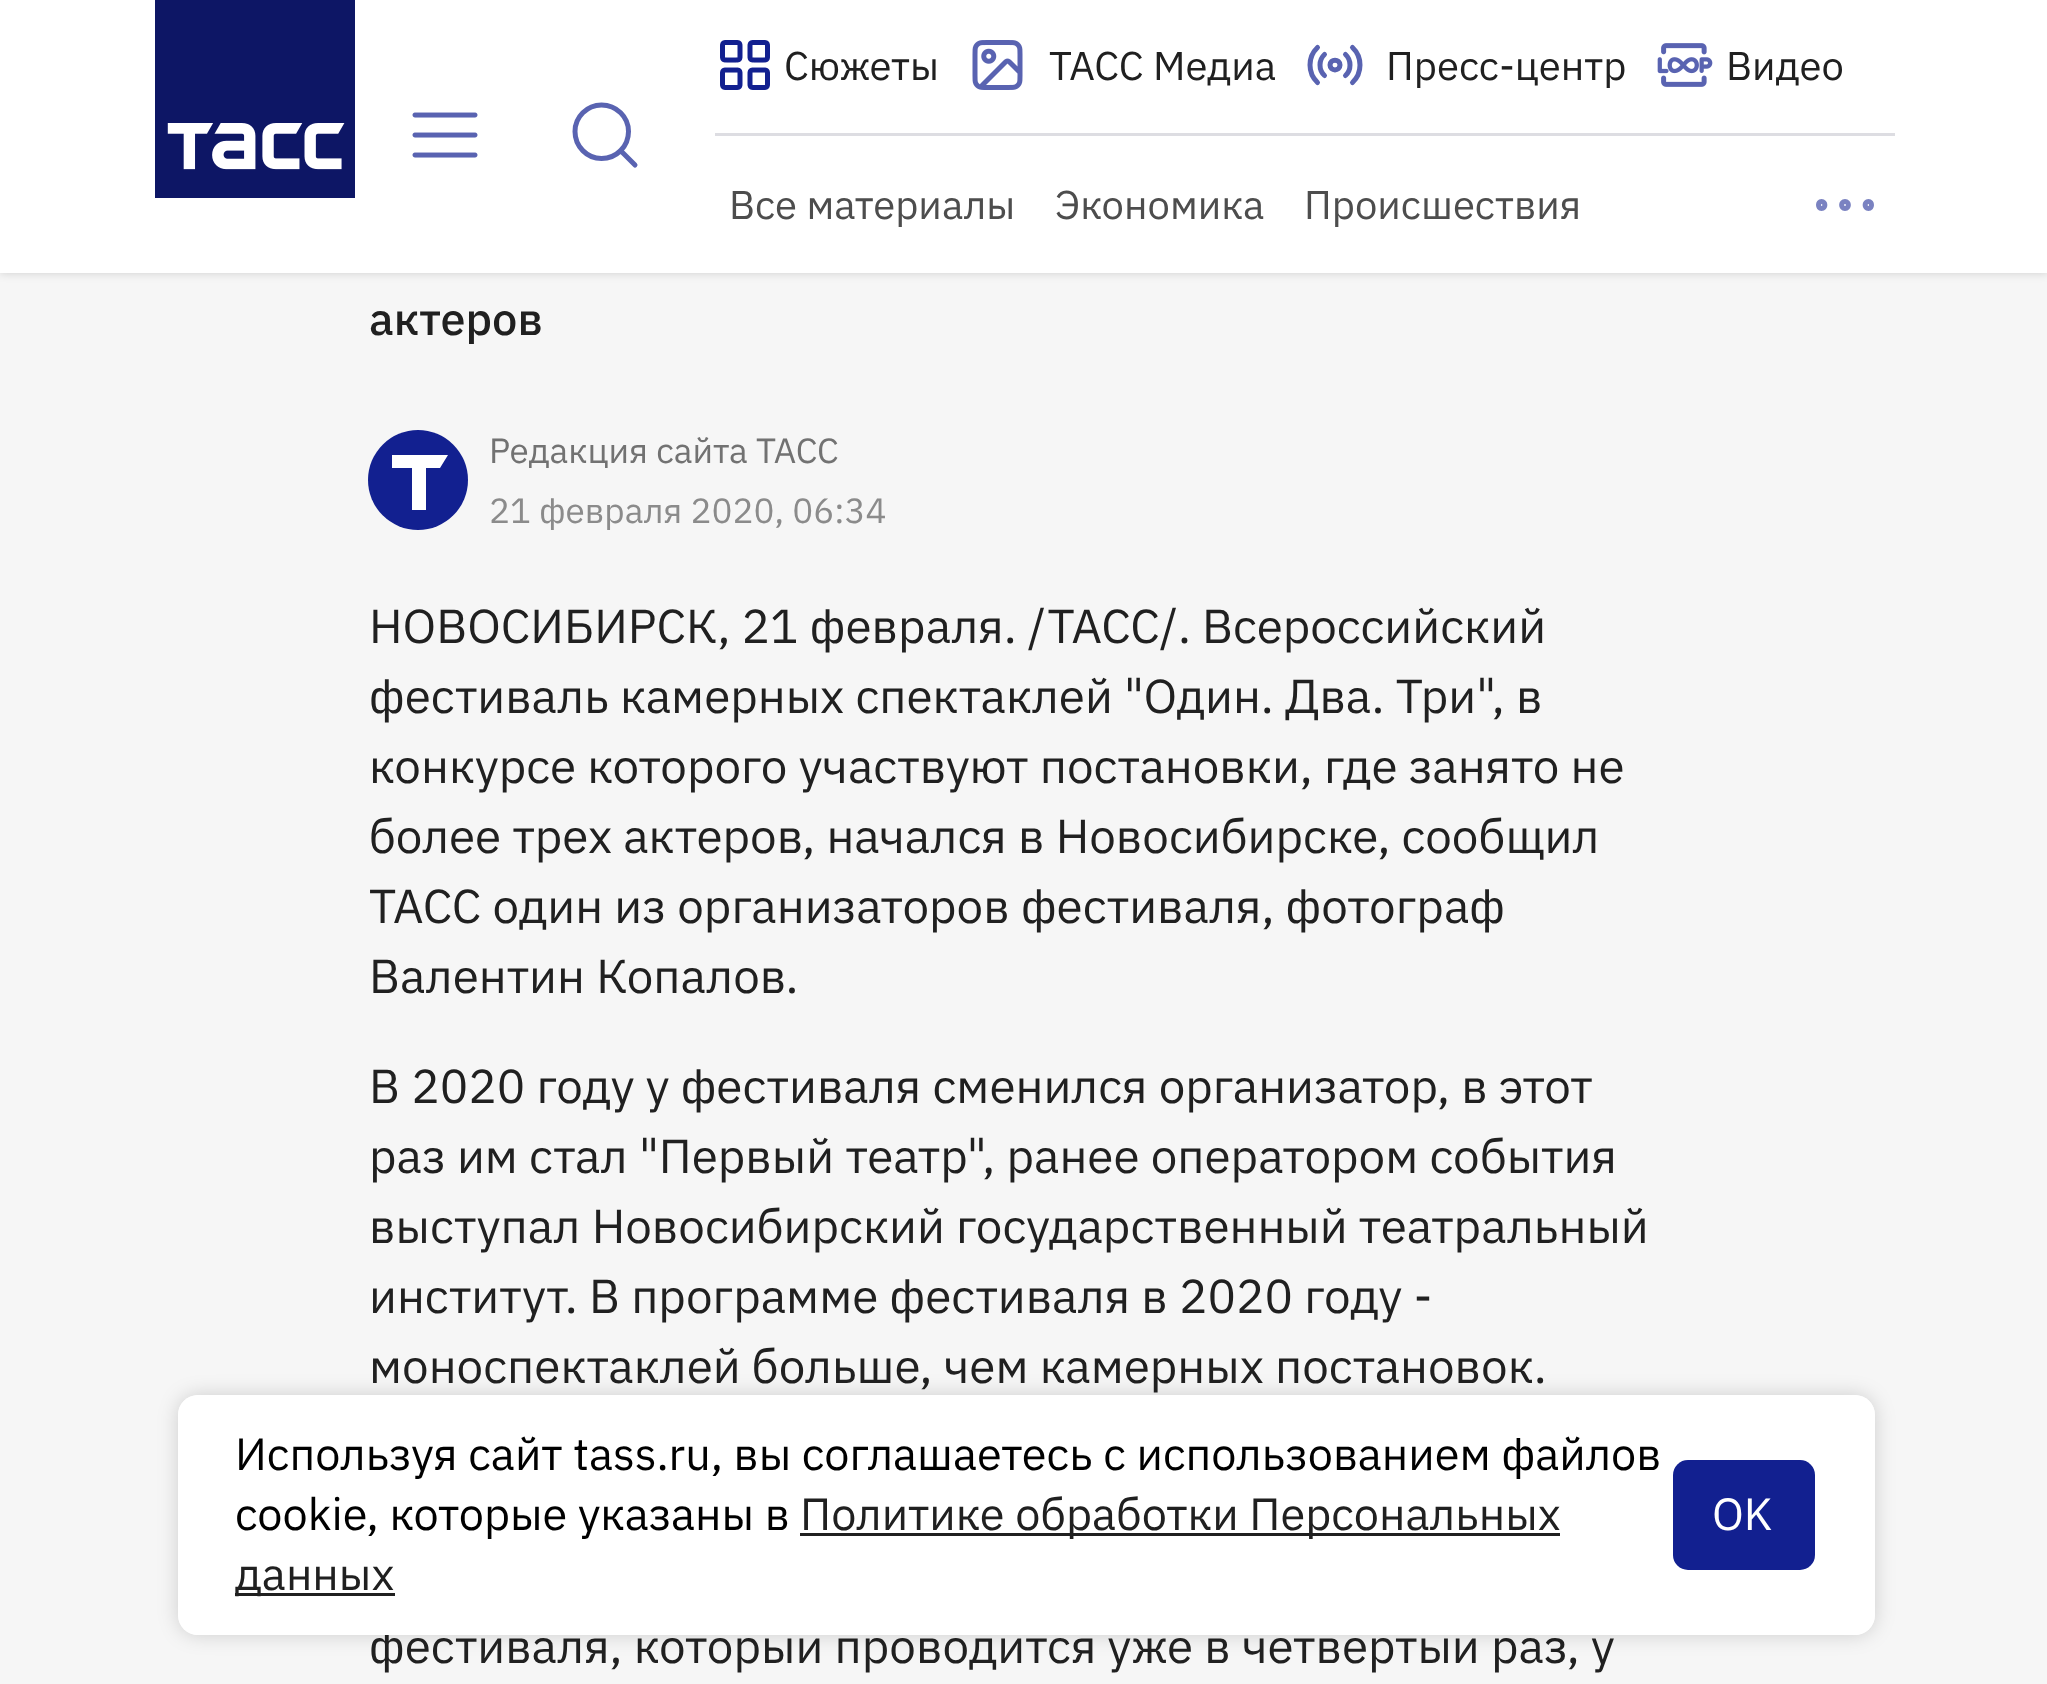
<?xml version="1.0" encoding="UTF-8"?>
<svg xmlns="http://www.w3.org/2000/svg" xmlns:xlink="http://www.w3.org/1999/xlink" width="2047" height="1684">
  <defs>
    <clipPath id="clip1"><path d="M 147 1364 h 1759 v 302 h -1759 z m 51 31 h 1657 c 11 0 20 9 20 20 v 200 c 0 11 -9 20 -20 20 h -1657 c -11 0 -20 -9 -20 -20 v -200 c 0 -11 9 -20 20 -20 z" clip-rule="evenodd" /></clipPath>
  </defs>
  <rect width="100%" height="100%" fill="#f6f6f6" />
  <rect y="-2" width="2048" height="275" fill="#000000" fill-opacity="0.16" filter="blur(5px)" />
  <rect width="2047" height="273" fill="#ffffff" />
  <rect x="155" width="200" height="198" fill="#0d1665" />
  <image x="167" y="123" width="178" height="47" xlink:href="image1.png" />
  <rect x="715" y="133" width="1180" height="3" fill="#dddde2" />
  <image x="720" y="40" width="50" height="50" xlink:href="image2.png" />
  <image x="972" y="40" width="51" height="50" xlink:href="image3.png" />
  <path d="M 1345.5 54.5 c 6 5.5 6 15.5 0 21 m -21 0 c -6 -5.5 -6 -15.5 0 -21 m -7 28 c -10 -9.5 -10 -25.5 0 -35 m 35 0 c 10 9.5 10 25.5 0 35 m -12.5 -17.5 c 0 6.5 -10 6.5 -10 0 c 0 -6.5 10 -6.5 10 0" fill="none" stroke="#5963b1" stroke-width="5" stroke-linecap="round" stroke-linejoin="round" />
  <image x="1657" y="43" width="56" height="44" xlink:href="image4.png" />
  <image x="412" y="112" width="66" height="46" xlink:href="image5.png" />
  <path d="M 635 165 l -14.5 -14.5 m 8 -19 c 0 15 -12 27 -27 27 c -14.5 0 -26.5 -12 -26.5 -27 c 0 -14.5 12 -26.5 26.5 -26.5 c 15 0 27 12 27 26.5" fill="none" stroke="#5963b1" stroke-width="5" stroke-linecap="round" stroke-linejoin="round" />
  <path d="M 1845 208.5 c 4.5 0 4.5 -7 0 -7 c -4.5 0 -4.5 7 0 7 m 23.5 0 c 4 0 4 -7 0 -7 c -4.5 0 -4.5 7 0 7 m -47 0 c 4.5 0 4.5 -7 0 -7 c -4 0 -4 7 0 7" fill="none" stroke="#7a82c1" stroke-width="5" stroke-linecap="round" stroke-linejoin="round" />
  <circle cx="418" cy="480" r="50" fill="#122090" />
  <path d="M 392 455 h 56 l -8 13 h -14 v 42 h -14 v -42 h -20 z" fill="#ffffff" fill-rule="evenodd" />
  <g clip-path="url(#clip1)">
    <rect x="178" y="1395" width="1697" height="240" rx="20" fill="#000000" fill-opacity="0.16" filter="blur(10px)" />
  </g>
  <text x="784" y="80" style="font-family: IBM Plex Sans; font-size: 40px; fill: #202020">Сюжеты</text>
  <text x="1049" y="80" style="font-family: IBM Plex Sans; font-size: 40px; fill: #202020">ТАСС Медиа</text>
  <text x="1386" y="80" style="font-family: IBM Plex Sans; font-size: 40px; fill: #202020">Пресс-центр</text>
  <text x="1726" y="80" style="font-family: IBM Plex Sans; font-size: 40px; fill: #202020">Видео</text>
  <text x="729" y="219" style="font-family: IBM Plex Sans; font-size: 40px; fill: #4d4d4d">Все материалы</text>
  <text x="1055" y="219" style="font-family: IBM Plex Sans; font-size: 40px; fill: #4d4d4d">Экономика</text>
  <text x="1304" y="219" style="font-family: IBM Plex Sans; font-size: 40px; fill: #4d4d4d">Происшествия</text>
  <text x="369" y="335" style="font-family: IBM Plex Sans; font-size: 45px; font-weight: 500; fill: #202020">актеров</text>
  <text x="489" y="463" style="font-family: IBM Plex Sans; font-size: 35px; fill: #727272">Редакция сайта ТАСС</text>
  <text x="489" y="523" style="font-family: IBM Plex Sans; font-size: 35px; fill: #8b8b8b">21 февраля 2020, 06:34</text>
  <text x="369" y="643" style="font-family: IBM Plex Sans; font-size: 47.5px; fill: #202020">НОВОСИБИРСК, 21 февраля. /ТАСС/. Всероссийский</text>
  <text x="369" y="713" style="font-family: IBM Plex Sans; font-size: 47.5px; fill: #202020">фестиваль камерных спектаклей "Один. Два. Три", в</text>
  <text x="369" y="783" style="font-family: IBM Plex Sans; font-size: 47.5px; fill: #202020">конкурсе которого участвуют постановки, где занято не</text>
  <text x="369" y="853" style="font-family: IBM Plex Sans; font-size: 47.5px; fill: #202020">более трех актеров, начался в Новосибирске, сообщил</text>
  <text x="369" y="923" style="font-family: IBM Plex Sans; font-size: 47.5px; fill: #202020">ТАСС один из организаторов фестиваля, фотограф</text>
  <text x="369" y="993" style="font-family: IBM Plex Sans; font-size: 47.5px; fill: #202020">Валентин Копалов.</text>
  <text x="369" y="1103" style="font-family: IBM Plex Sans; font-size: 47.5px; fill: #202020">В 2020 году у фестиваля сменился организатор, в этот</text>
  <text x="369" y="1173" style="font-family: IBM Plex Sans; font-size: 47.5px; fill: #202020">раз им стал "Первый театр", ранее оператором события</text>
  <text x="369" y="1243" style="font-family: IBM Plex Sans; font-size: 47.5px; fill: #202020">выступал Новосибирский государственный театральный</text>
  <text x="369" y="1313" style="font-family: IBM Plex Sans; font-size: 47.5px; fill: #202020">институт. В программе фестиваля в 2020 году -</text>
  <text x="369" y="1383" style="font-family: IBM Plex Sans; font-size: 47.5px; fill: #202020">моноспектаклей больше, чем камерных постановок.</text>
  <text x="369" y="1663" style="font-family: IBM Plex Sans; font-size: 47.5px; fill: #202020">фестиваля, который проводится уже в четвертый раз, у</text>
  <rect x="178" y="1395" width="1697" height="240" rx="20" fill="#ffffff" />
  <text x="235" y="1470" style="font-family: IBM Plex Sans; font-size: 45px; fill: #000000">Используя сайт tass.ru, вы соглашаетесь с использованием файлов</text>
  <text x="235" y="1530" style="font-family: IBM Plex Sans; font-size: 45px; fill: #000000">cookie, которые указаны в</text>
  <rect x="800" y="1533" width="760" height="3" fill="#202020" />
  <text x="800" y="1530" style="font-family: IBM Plex Sans; font-size: 45px; fill: #202020">Политике обработки Персональных</text>
  <rect x="235" y="1593" width="160" height="3" fill="#202020" />
  <text x="235" y="1590" style="font-family: IBM Plex Sans; font-size: 45px; fill: #202020">данных</text>
  <rect x="1673" y="1460" width="142" height="110" rx="15" fill="#122090" />
  <text x="1712" y="1530" style="font-family: IBM Plex Sans; font-size: 45px; fill: #ffffff">OK</text>
</svg>
